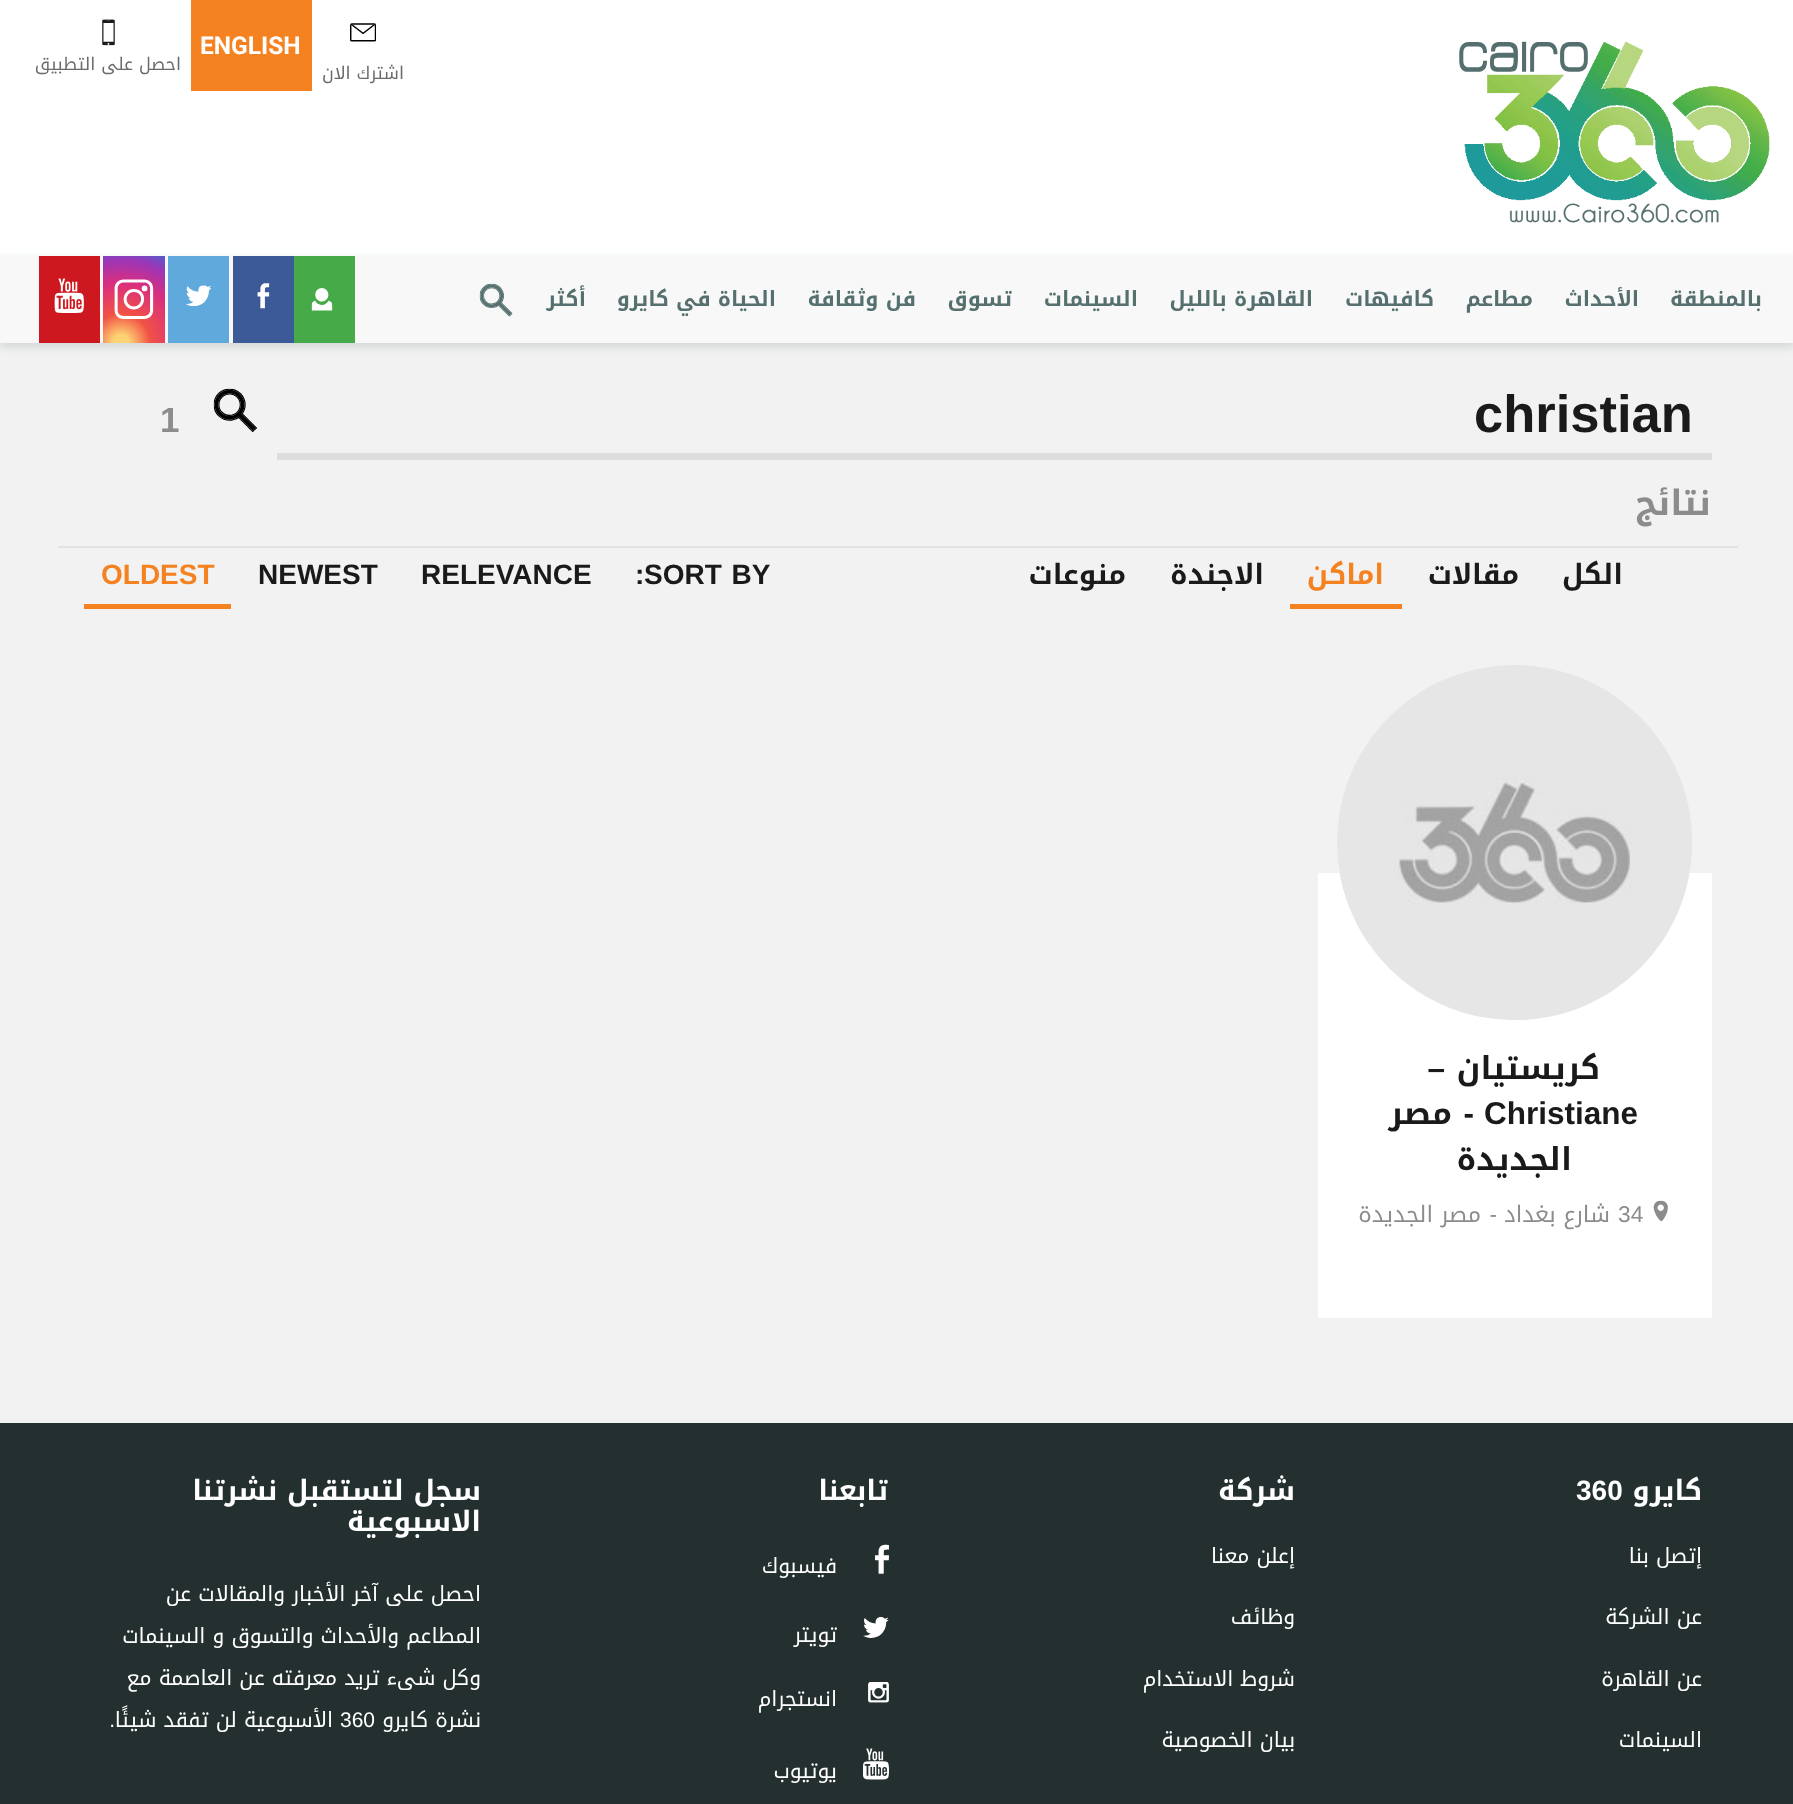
<?xml version="1.0" encoding="UTF-8"?>
<svg xmlns="http://www.w3.org/2000/svg" xmlns:xlink="http://www.w3.org/1999/xlink" width="1793" height="1804">
  <defs>
    <radialGradient id="g1" gradientUnits="userSpaceOnUse" cx="121" cy="343" r="98"><stop offset="0.08" stop-color="#fed373" /><stop offset="0.3" stop-color="#f15245" /><stop offset="0.62" stop-color="#d92e7f" /><stop offset="0.85" stop-color="#9b36b7" /><stop offset="1" stop-color="#515ecf" /></radialGradient>
  </defs>
  <rect width="100%" height="100%" fill="#f2f2f2" />
  <rect width="1793" height="256" fill="#ffffff" />
  <image x="1459" y="41" width="311" height="182" xlink:href="image1.png" />
  <rect x="191" width="121" height="91" fill="#f58220" />
  <image x="350" y="23" width="26" height="19" xlink:href="image2.png" />
  <image x="102" y="19" width="13" height="27" xlink:href="image3.png" />
  <rect y="259" width="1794" height="88" fill="#55706f" fill-opacity="0.21" filter="blur(5px)" />
  <rect y="256" width="1793" height="87" fill="#f8f8f8" />
  <image x="479" y="283" width="34" height="34" xlink:href="image4.png" />
  <rect x="294" y="256" width="61" height="87" fill="#47aa48" />
  <image x="311" y="288" width="22" height="23" xlink:href="image5.png" />
  <rect x="233" y="256" width="61" height="87" fill="#3d5a98" />
  <image x="257" y="283" width="13" height="26" xlink:href="image6.png" />
  <rect x="168" y="256" width="61" height="87" fill="#5fa9dd" />
  <image x="186" y="285" width="26" height="21" xlink:href="image7.png" />
  <rect x="103" y="256" width="62" height="87" fill="url(#g1)" />
  <image x="114" y="279" width="40" height="40" xlink:href="image8.png" />
  <rect x="39" y="256" width="61" height="87" fill="#cc181e" />
  <image x="54" y="278" width="30" height="35" xlink:href="image9.png" />
  <rect x="58" y="546" width="1680" height="2" fill="#e2e2e2" />
  <rect x="277" y="453" width="1435" height="7" fill="#dddddd" />
  <image x="213" y="388" width="44" height="44" xlink:href="image10.png" />
  <rect x="1290" y="604" width="112" height="5" fill="#f58220" />
  <rect x="84" y="604" width="147" height="5" fill="#f58220" />
  <rect x="1318" y="873" width="394" height="445" fill="#ffffff" />
  <image x="1337" y="665" width="355" height="355" xlink:href="image11.png" />
  <image x="1653" y="1200" width="15" height="22" xlink:href="image12.png" />
  <rect y="1423" width="1793" height="381" fill="#242f2f" />
  <image x="875" y="1544" width="14" height="30" xlink:href="image13.png" />
  <image x="863" y="1617" width="26" height="21" xlink:href="image14.png" />
  <image x="868" y="1682" width="21" height="21" xlink:href="image15.png" />
  <image x="863" y="1748" width="26" height="32" xlink:href="image16.png" />
  <text x="200" y="54" style="font-family: Roboto; font-size: 24.5px; font-weight: bold; fill: #ffffff">ENGLISH</text>
  <text x="404" y="79" style="font-family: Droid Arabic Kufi; font-size: 17.5px; direction: rtl; fill: #6a6b6d">اشترك الان</text>
  <text x="181" y="70" style="font-family: Droid Arabic Kufi; font-size: 17.5px; direction: rtl; fill: #6a6b6d">احصل على التطبيق</text>
  <text x="1762" y="306" style="font-family: Droid Arabic Kufi; font-size: 21px; font-weight: bold; direction: rtl; fill: #55706f">بالمنطقة</text>
  <text x="1639" y="306" style="font-family: Droid Arabic Kufi; font-size: 21px; font-weight: bold; direction: rtl; fill: #55706f">الأحداث</text>
  <text x="1533" y="306" style="font-family: Droid Arabic Kufi; font-size: 21px; font-weight: bold; direction: rtl; fill: #55706f">مطاعم</text>
  <text x="1434" y="306" style="font-family: Droid Arabic Kufi; font-size: 21px; font-weight: bold; direction: rtl; fill: #55706f">كافيهات</text>
  <text x="1313" y="306" style="font-family: Droid Arabic Kufi; font-size: 21px; font-weight: bold; direction: rtl; fill: #55706f">القاهرة بالليل</text>
  <text x="1138" y="306" style="font-family: Droid Arabic Kufi; font-size: 21px; font-weight: bold; direction: rtl; fill: #55706f">السينمات</text>
  <text x="1012" y="306" style="font-family: Droid Arabic Kufi; font-size: 21px; font-weight: bold; direction: rtl; fill: #55706f">تسوق</text>
  <text x="916" y="306" style="font-family: Droid Arabic Kufi; font-size: 21px; font-weight: bold; direction: rtl; fill: #55706f">فن وثقافة</text>
  <text x="776" y="306" style="font-family: Droid Arabic Kufi; font-size: 21px; font-weight: bold; direction: rtl; fill: #55706f">الحياة في كايرو</text>
  <text x="586" y="306" style="font-family: Droid Arabic Kufi; font-size: 21px; font-weight: bold; direction: rtl; fill: #55706f">أكثر</text>
  <text x="1474" y="432" style="font-family: Liberation Sans; font-size: 52.5px; font-weight: bold; fill: #1a1a1a">christian</text>
  <text x="160" y="432" style="font-family: Liberation Sans; font-size: 35px; font-weight: bold; fill: #8c8c8c">1</text>
  <text x="1711" y="515" style="font-family: Droid Arabic Kufi; font-size: 35px; font-weight: bold; direction: rtl; fill: #8c8c8c">نتائج</text>
  <text x="1623" y="584" style="font-family: Droid Arabic Kufi; font-size: 28px; font-weight: bold; direction: rtl; fill: #1a1a1a">الكل</text>
  <text x="1519" y="584" style="font-family: Droid Arabic Kufi; font-size: 28px; font-weight: bold; direction: rtl; fill: #1a1a1a">مقالات</text>
  <text x="1384" y="584" style="font-family: Droid Arabic Kufi; font-size: 28px; font-weight: bold; direction: rtl; fill: #f58220">اماكن</text>
  <text x="1264" y="584" style="font-family: Droid Arabic Kufi; font-size: 28px; font-weight: bold; direction: rtl; fill: #1a1a1a">الاجندة</text>
  <text x="1126" y="584" style="font-family: Droid Arabic Kufi; font-size: 28px; font-weight: bold; direction: rtl; fill: #1a1a1a">منوعات</text>
  <text x="644" y="584" word-spacing="2" style="font-family: Liberation Sans; font-size: 28px; font-weight: bold; fill: #1a1a1a">SORT BY</text>
  <text x="635" y="584" style="font-family: Liberation Sans; font-size: 28px; font-weight: bold; fill: #1a1a1a">:</text>
  <text x="421" y="584" style="font-family: Liberation Sans; font-size: 28px; font-weight: bold; fill: #1a1a1a">RELEVANCE</text>
  <text x="258" y="584" style="font-family: Liberation Sans; font-size: 28px; font-weight: bold; fill: #1a1a1a">NEWEST</text>
  <text x="101" y="584" style="font-family: Liberation Sans; font-size: 28px; font-weight: bold; fill: #f58220">OLDEST</text>
  <text x="1600" y="1079" style="font-family: Droid Arabic Kufi; font-size: 31.5px; font-weight: bold; direction: rtl; fill: #1a1a1a">كريستيان</text>
  <text x="1445" y="1079" style="font-family: Liberation Sans; font-size: 31.5px; font-weight: bold; direction: rtl; fill: #1a1a1a">–</text>
  <text x="1484" y="1124" style="font-family: Liberation Sans; font-size: 31.5px; font-weight: bold; fill: #1a1a1a">Christiane</text>
  <text x="1474" y="1124" style="font-family: Liberation Sans; font-size: 31.5px; font-weight: bold; direction: rtl; fill: #1a1a1a">-</text>
  <text x="1452" y="1124" style="font-family: Droid Arabic Kufi; font-size: 31.5px; font-weight: bold; direction: rtl; fill: #1a1a1a">مصر</text>
  <text x="1572" y="1170" style="font-family: Droid Arabic Kufi; font-size: 31.5px; font-weight: bold; direction: rtl; fill: #1a1a1a">الجديدة</text>
  <text x="1618" y="1222" style="font-family: Liberation Sans; font-size: 22.75px; fill: #8c8c8c">34</text>
  <text x="1610" y="1222" style="font-family: Droid Arabic Kufi; font-size: 22.75px; direction: rtl; fill: #8c8c8c">شارع بغداد</text>
  <text x="1497" y="1222" style="font-family: Liberation Sans; font-size: 22.75px; direction: rtl; fill: #8c8c8c">-</text>
  <text x="1481" y="1222" style="font-family: Droid Arabic Kufi; font-size: 22.75px; direction: rtl; fill: #8c8c8c">مصر الجديدة</text>
  <text x="1702" y="1500" style="font-family: Droid Arabic Kufi; font-size: 28px; font-weight: bold; direction: rtl; fill: #ffffff">كايرو</text>
  <text x="1576" y="1500" style="font-family: Liberation Sans; font-size: 28px; font-weight: bold; fill: #ffffff">360</text>
  <text x="1702" y="1563" style="font-family: Droid Arabic Kufi; font-size: 21px; direction: rtl; fill: #ffffff">إتصل بنا</text>
  <text x="1702" y="1624" style="font-family: Droid Arabic Kufi; font-size: 21px; direction: rtl; fill: #ffffff">عن الشركة</text>
  <text x="1702" y="1686" style="font-family: Droid Arabic Kufi; font-size: 21px; direction: rtl; fill: #ffffff">عن القاهرة</text>
  <text x="1702" y="1747" style="font-family: Droid Arabic Kufi; font-size: 21px; direction: rtl; fill: #ffffff">السينمات</text>
  <text x="1295" y="1500" style="font-family: Droid Arabic Kufi; font-size: 28px; font-weight: bold; direction: rtl; fill: #ffffff">شركة</text>
  <text x="1295" y="1563" style="font-family: Droid Arabic Kufi; font-size: 21px; direction: rtl; fill: #ffffff">إعلن معنا</text>
  <text x="1295" y="1624" style="font-family: Droid Arabic Kufi; font-size: 21px; direction: rtl; fill: #ffffff">وظائف</text>
  <text x="1295" y="1686" style="font-family: Droid Arabic Kufi; font-size: 21px; direction: rtl; fill: #ffffff">شروط الاستخدام</text>
  <text x="1295" y="1747" style="font-family: Droid Arabic Kufi; font-size: 21px; direction: rtl; fill: #ffffff">بيان الخصوصية</text>
  <text x="888" y="1500" style="font-family: Droid Arabic Kufi; font-size: 28px; font-weight: bold; direction: rtl; fill: #ffffff">تابعنا</text>
  <text x="837" y="1573" style="font-family: Droid Arabic Kufi; font-size: 21px; direction: rtl; fill: #ffffff">فيسبوك</text>
  <text x="837" y="1642" style="font-family: Droid Arabic Kufi; font-size: 21px; direction: rtl; fill: #ffffff">تويتر</text>
  <text x="837" y="1706" style="font-family: Droid Arabic Kufi; font-size: 21px; direction: rtl; fill: #ffffff">انستجرام</text>
  <text x="837" y="1778" style="font-family: Droid Arabic Kufi; font-size: 21px; direction: rtl; fill: #ffffff">يوتيوب</text>
  <text x="481" y="1500" style="font-family: Droid Arabic Kufi; font-size: 28px; font-weight: bold; direction: rtl; fill: #ffffff">سجل لتستقبل نشرتنا</text>
  <text x="481" y="1531" style="font-family: Droid Arabic Kufi; font-size: 28px; font-weight: bold; direction: rtl; fill: #ffffff">الاسبوعية</text>
  <text x="481" y="1601" style="font-family: Droid Arabic Kufi; font-size: 21px; direction: rtl; fill: #ffffff">احصل على آخر الأخبار والمقالات عن</text>
  <text x="481" y="1643" style="font-family: Droid Arabic Kufi; font-size: 21px; direction: rtl; fill: #ffffff">المطاعم والأحداث والتسوق و السينمات</text>
  <text x="481" y="1685" style="font-family: Droid Arabic Kufi; font-size: 21px; direction: rtl; fill: #ffffff">وكل شىء تريد معرفته عن العاصمة مع</text>
  <text x="481" y="1727" style="font-family: Droid Arabic Kufi; font-size: 21px; direction: rtl; fill: #ffffff">نشرة كايرو</text>
  <text x="340" y="1727" style="font-family: Liberation Sans; font-size: 21px; fill: #ffffff">360</text>
  <text x="333" y="1727" style="font-family: Droid Arabic Kufi; font-size: 21px; direction: rtl; fill: #ffffff">الأسبوعية لن تفقد شيئًا</text>
  <text x="115" y="1727" style="font-family: Liberation Sans; font-size: 21px; direction: rtl; fill: #ffffff">.</text>
</svg>
